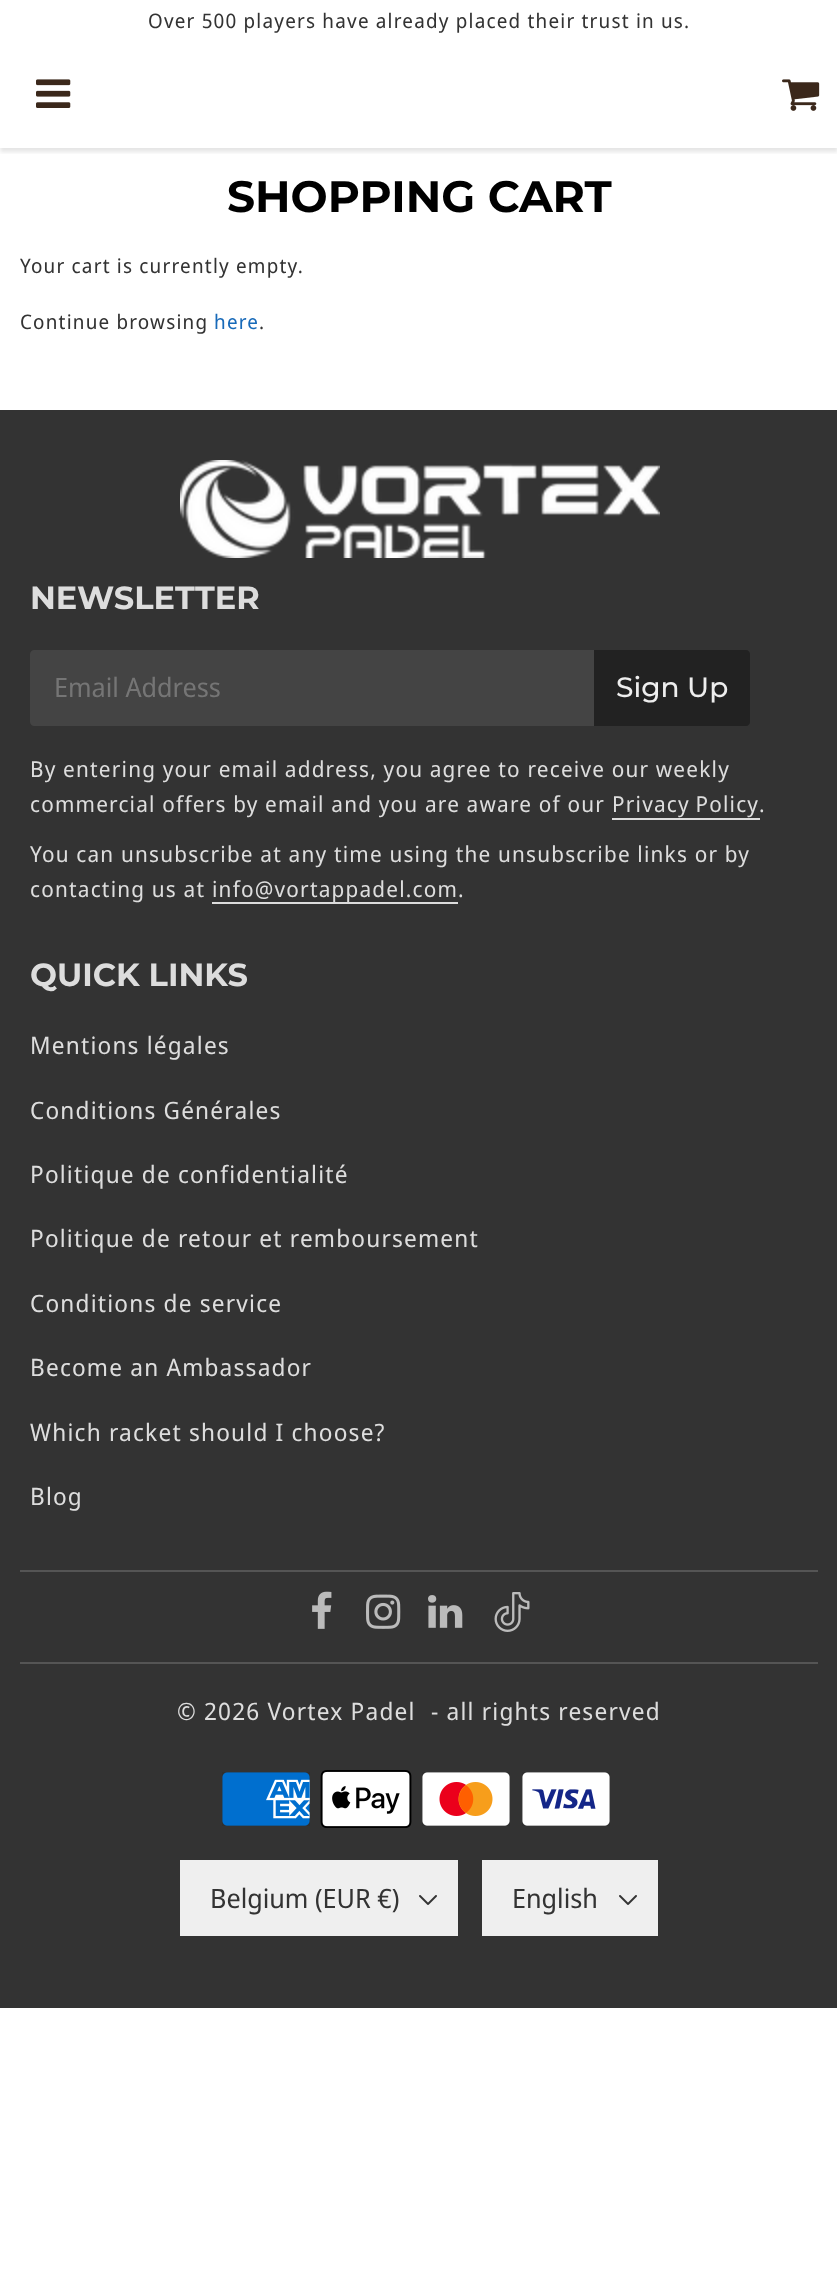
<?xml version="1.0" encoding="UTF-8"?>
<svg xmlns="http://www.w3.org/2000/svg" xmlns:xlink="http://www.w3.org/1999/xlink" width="837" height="2271">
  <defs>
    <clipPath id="clip1"><rect x="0" y="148" width="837" height="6" /></clipPath>
  </defs>
  <rect width="100%" height="100%" fill="#ffffff" />
  <g clip-path="url(#clip1)">
    <rect y="44" width="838" height="108" fill="#000000" fill-opacity="0.1" filter="blur(2px)" />
  </g>
  <image x="36" y="79" width="35" height="29" xlink:href="image1.png" />
  <image x="782" y="79" width="38" height="32" xlink:href="image2.png" />
  <rect y="410" width="837" height="1598" fill="#333333" />
  <image x="180" y="460" width="480" height="98" xlink:href="image3.png" />
  <path d="M 34 650 h 560 v 76 h -560 c -2 0 -4 -2 -4 -4 v -68 c 0 -2 2 -4 4 -4 z" fill="#444444" />
  <path d="M 594 650 h 152 c 2 0 4 2 4 4 v 68 c 0 2 -2 4 -4 4 h -152 z" fill="#222222" />
  <rect x="612" y="818" width="148" height="2" fill="#dddddd" />
  <rect x="212" y="902" width="246" height="2" fill="#dddddd" />
  <rect x="20" y="1570" width="798" height="2" fill="#555555" />
  <image x="312" y="1591" width="20" height="38" xlink:href="image4.png" />
  <image x="366" y="1594" width="35" height="35" xlink:href="image5.png" />
  <image x="428" y="1595" width="35" height="33" xlink:href="image6.png" />
  <image x="494" y="1592" width="36" height="40" xlink:href="image7.png" />
  <rect x="20" y="1662" width="798" height="2" fill="#555555" />
  <image x="222" y="1772" width="88" height="54" xlink:href="image8.png" />
  <image x="320" y="1770" width="92" height="58" xlink:href="image9.png" />
  <image x="422" y="1772" width="88" height="54" xlink:href="image10.png" />
  <image x="522" y="1772" width="88" height="54" xlink:href="image11.png" />
  <rect x="180" y="1860" width="278" height="76" fill="#efefef" />
  <image x="419" y="1895" width="18" height="10" xlink:href="image12.png" />
  <rect x="482" y="1860" width="176" height="76" fill="#efefef" />
  <image x="619" y="1895" width="18" height="10" xlink:href="image12.png" />
  <text x="148" y="28" style="font-family: Noto Sans Display; font-size: 20px; letter-spacing: 1.2px; fill: #333333">Over 500 players have already placed their trust in us.</text>
  <text x="227" y="212" style="font-family: Montserrat; font-size: 44px; font-weight: bold; fill: #000000">SHOPPING CART</text>
  <text x="20" y="273" style="font-family: Noto Sans Display; font-size: 20px; letter-spacing: 1.2px; fill: #333333">Your cart is currently empty.</text>
  <text x="20" y="329" style="font-family: Noto Sans Display; font-size: 20px; letter-spacing: 1.2px; fill: #333333">Continue browsing</text>
  <text x="214" y="329" style="font-family: Noto Sans Display; font-size: 20px; letter-spacing: 1.2px; fill: #186ab9">here</text>
  <text x="259" y="329" style="font-family: Noto Sans Display; font-size: 20px; letter-spacing: 1.2px; fill: #333333">.</text>
  <text x="30" y="609" style="font-family: Montserrat; font-size: 32px; font-weight: bold; fill: #dddddd">NEWSLETTER</text>
  <text x="54" y="697" style="font-family: Noto Sans Display; font-size: 26.75px; fill: #757575">Email Address</text>
  <text x="616" y="697" style="font-family: Montserrat; font-size: 28px; font-weight: 500; fill: #eeeeee">Sign Up</text>
  <text x="30" y="777" style="font-family: Noto Sans Display; font-size: 22px; letter-spacing: 1.2px; fill: #dddddd">By entering your email address, you agree to receive our weekly</text>
  <text x="30" y="812" style="font-family: Noto Sans Display; font-size: 22px; letter-spacing: 1.2px; fill: #dddddd">commercial offers by email and you are aware of our</text>
  <text x="612" y="812" word-spacing="-1" style="font-family: Noto Sans Display; font-size: 22px; letter-spacing: 1.2px; fill: #dddddd">Privacy Policy</text>
  <text x="759" y="812" style="font-family: Noto Sans Display; font-size: 22px; letter-spacing: 1.2px; fill: #dddddd">.</text>
  <text x="30" y="862" style="font-family: Noto Sans Display; font-size: 22px; letter-spacing: 1.2px; fill: #dddddd">You can unsubscribe at any time using the unsubscribe links or by</text>
  <text x="30" y="897" style="font-family: Noto Sans Display; font-size: 22px; letter-spacing: 1.2px; fill: #dddddd">contacting us at</text>
  <text x="212" y="897" style="font-family: Noto Sans Display; font-size: 22px; letter-spacing: 1.2px; fill: #dddddd">info@vortappadel.com</text>
  <text x="458" y="897" style="font-family: Noto Sans Display; font-size: 22px; letter-spacing: 1.2px; fill: #dddddd">.</text>
  <text x="30" y="986" style="font-family: Montserrat; font-size: 32px; font-weight: bold; fill: #dddddd">QUICK LINKS</text>
  <text x="30" y="1054" style="font-family: Noto Sans Display; font-size: 24px; letter-spacing: 1.2px; fill: #dddddd">Mentions légales</text>
  <text x="30" y="1119" style="font-family: Noto Sans Display; font-size: 24px; letter-spacing: 1.2px; fill: #dddddd">Conditions Générales</text>
  <text x="30" y="1183" style="font-family: Noto Sans Display; font-size: 24px; letter-spacing: 1.2px; fill: #dddddd">Politique de confidentialité</text>
  <text x="30" y="1247" style="font-family: Noto Sans Display; font-size: 24px; letter-spacing: 1.2px; fill: #dddddd">Politique de retour et remboursement</text>
  <text x="30" y="1312" style="font-family: Noto Sans Display; font-size: 24px; letter-spacing: 1.2px; fill: #dddddd">Conditions de service</text>
  <text x="30" y="1376" style="font-family: Noto Sans Display; font-size: 24px; letter-spacing: 1.2px; fill: #dddddd">Become an Ambassador</text>
  <text x="30" y="1441" style="font-family: Noto Sans Display; font-size: 24px; letter-spacing: 1.2px; fill: #dddddd">Which racket should I choose?</text>
  <text x="30" y="1505" style="font-family: Noto Sans Display; font-size: 24px; letter-spacing: 1.2px; fill: #dddddd">Blog</text>
  <text x="177" y="1720" style="font-family: Noto Sans Display; font-size: 24px; letter-spacing: 1.2px; fill: #dddddd">© 2026 Vortex Padel</text>
  <text x="431" y="1720" style="font-family: Noto Sans Display; font-size: 24px; letter-spacing: 1.2px; fill: #dddddd">- all rights reserved</text>
  <text x="210" y="1908" style="font-family: Noto Sans Display; font-size: 26.75px; fill: #333333">Belgium (EUR €)</text>
  <text x="512" y="1908" style="font-family: Noto Sans Display; font-size: 26.75px; fill: #333333">English</text>
</svg>
